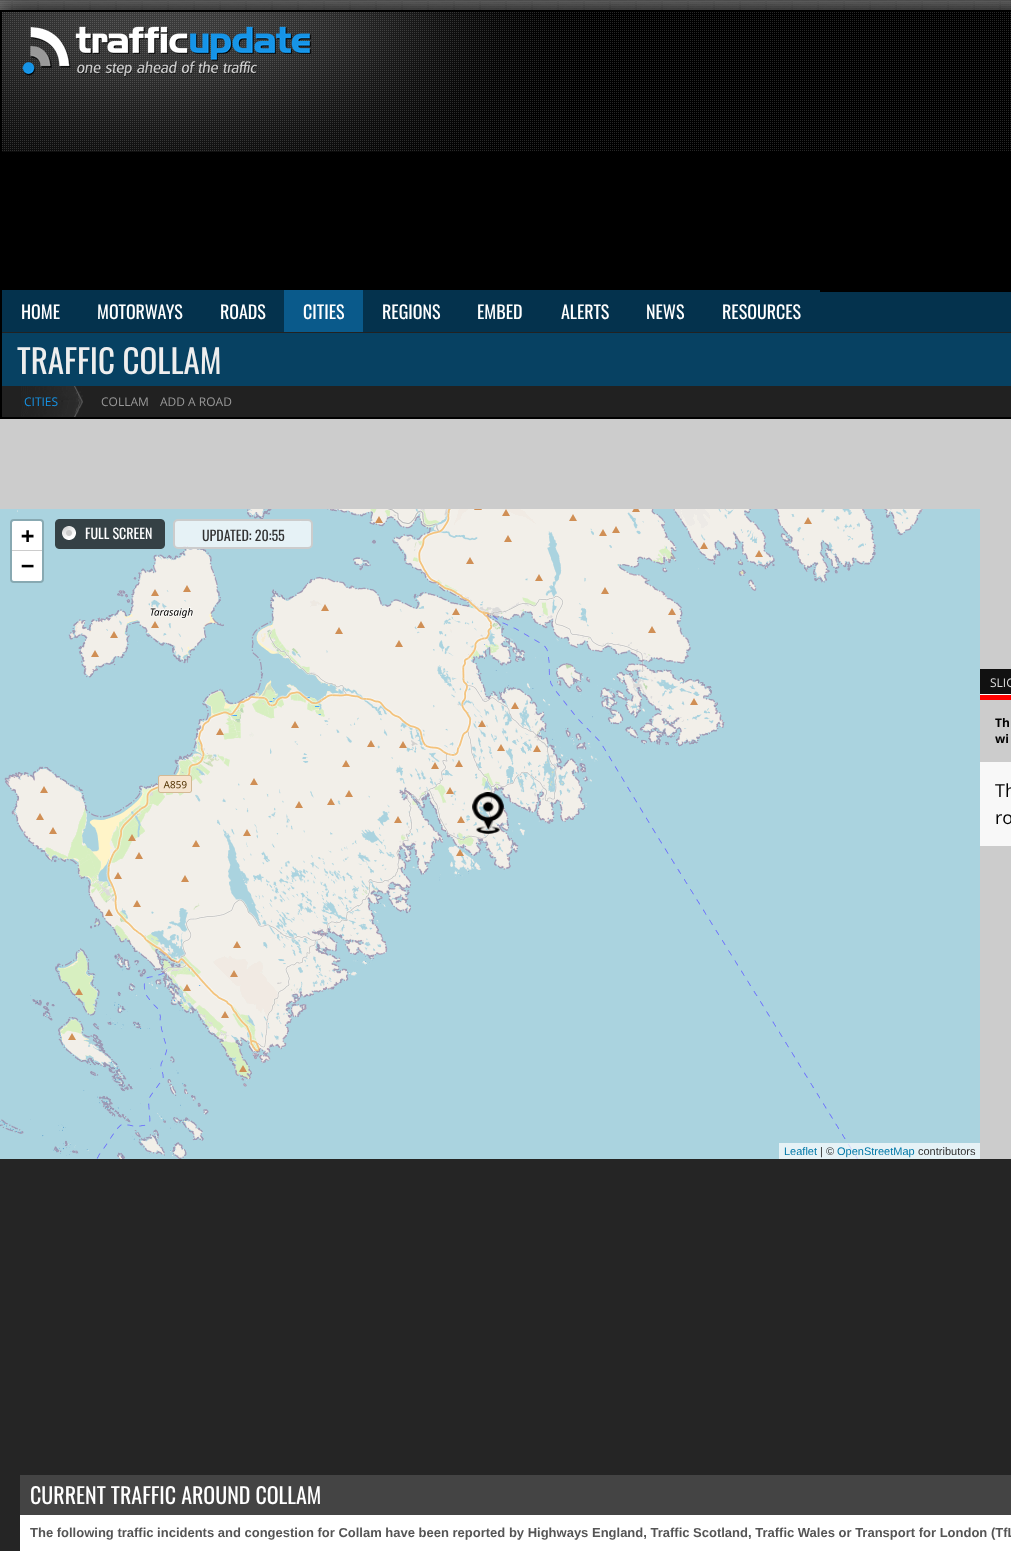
<?xml version="1.0" encoding="UTF-8"?>
<svg xmlns="http://www.w3.org/2000/svg" xmlns:xlink="http://www.w3.org/1999/xlink" width="1011" height="1551">
  <rect width="100%" height="100%" fill="#ffffff" />
  <image x="0" y="0" width="1011" height="10" xlink:href="image1.png" />
  <rect y="10" width="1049" height="409" fill="#000000" filter="blur(12.5px)" />
  <rect x="1" y="11" width="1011" height="407" fill="none" stroke="#000000" stroke-width="2" />
  <rect x="2" y="290" width="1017" height="43" fill="#000000" fill-opacity="0.15" filter="blur(2.5px)" />
  <rect x="2" y="152" width="27" height="140" fill="#000000" />
  <image x="2" y="12" width="1009" height="140" xlink:href="image2.png" />
  <image x="22" y="26" width="289" height="51" xlink:href="image3.png" />
  <rect x="820" y="292" width="191" height="40" fill="#04324d" />
  <rect x="2" y="332" width="1009" height="1" fill="#222222" />
  <rect x="2" y="290" width="282" height="42" fill="#04324d" />
  <rect x="284" y="290" width="79" height="42" fill="#0a5a8b" />
  <rect x="363" y="290" width="457" height="42" fill="#04324d" />
  <rect x="2" y="333" width="1009" height="53" fill="#074162" />
  <rect x="2" y="386" width="1009" height="31" fill="#212121" />
  <image x="21" y="386" width="62" height="31" xlink:href="image4.png" />
  <rect y="419" width="1011" height="740" fill="#cccccc" />
  <image x="0" y="509" width="155" height="122" xlink:href="image6.png" />
  <image x="155" y="509" width="256" height="122" xlink:href="image7.png" />
  <image x="55" y="519" width="110" height="30" xlink:href="image5.png" />
  <rect x="174" y="520" width="138" height="28" rx="4" fill="#ffffff" fill-opacity="0.7" stroke="#cccccc" stroke-width="2" />
  <image x="411" y="509" width="256" height="122" xlink:href="image8.png" />
  <image x="667" y="509" width="256" height="122" xlink:href="image9.png" />
  <rect x="923" y="509" width="57" height="650" fill="#aad3df" />
  <image x="0" y="631" width="155" height="256" xlink:href="image10.png" />
  <image x="155" y="631" width="256" height="256" xlink:href="image11.png" />
  <image x="411" y="631" width="256" height="256" xlink:href="image12.png" />
  <image x="667" y="631" width="256" height="256" xlink:href="image13.png" />
  <image x="0" y="887" width="155" height="256" xlink:href="image14.png" />
  <image x="155" y="887" width="256" height="256" xlink:href="image15.png" />
  <rect x="411" y="887" width="256" height="272" fill="#aad3df" />
  <image x="667" y="887" width="256" height="256" xlink:href="image16.png" />
  <image x="0" y="1143" width="155" height="16" xlink:href="image17.png" />
  <image x="155" y="1143" width="256" height="16" xlink:href="image18.png" />
  <image x="667" y="1143" width="256" height="16" xlink:href="image19.png" />
  <image x="472" y="792" width="32" height="42" xlink:href="image20.png" />
  <rect x="11" y="520" width="32" height="62" rx="3" fill="none" stroke="#88a9b2" stroke-width="2" />
  <path d="M 14 521 h 26 c 1 0 2 1 2 2 v 28 h -30 v -28 c 0 -1 1 -2 2 -2 z" fill="#ffffff" />
  <rect x="12" y="550" width="30" height="1" fill="#cccccc" />
  <path d="M 12 551 h 30 v 28 c 0 1 -1 2 -2 2 h -26 c -1 0 -2 -1 -2 -2 z" fill="#ffffff" />
  <rect x="779" y="1143" width="201" height="16" fill="#ffffff" fill-opacity="0.7" />
  <rect x="980" y="669" width="31" height="25" fill="#111111" />
  <rect x="980" y="694" width="31" height="1" fill="#ffffff" />
  <rect x="980" y="695" width="31" height="5" fill="#ff0000" />
  <rect x="980" y="762" width="31" height="84" fill="#f8f8f8" />
  <rect y="1159" width="1011" height="392" fill="#252525" />
  <rect x="20" y="1475" width="991" height="40" fill="#444444" />
  <rect x="20" y="1515" width="991" height="36" fill="#ffffff" />
  <text x="21" y="319" style="font-family: Oswald; font-size: 18px; fill: #ffffff">HOME</text>
  <text x="97" y="319" style="font-family: Oswald; font-size: 18px; fill: #ffffff">MOTORWAYS</text>
  <text x="220" y="319" style="font-family: Oswald; font-size: 18px; fill: #ffffff">ROADS</text>
  <text x="303" y="319" style="font-family: Oswald; font-size: 18px; fill: #ffffff">CITIES</text>
  <text x="382" y="319" style="font-family: Oswald; font-size: 18px; fill: #ffffff">REGIONS</text>
  <text x="477" y="319" style="font-family: Oswald; font-size: 18px; fill: #ffffff">EMBED</text>
  <text x="561" y="319" style="font-family: Oswald; font-size: 18px; fill: #ffffff">ALERTS</text>
  <text x="646" y="319" style="font-family: Oswald; font-size: 18px; fill: #ffffff">NEWS</text>
  <text x="722" y="319" style="font-family: Oswald; font-size: 18px; fill: #ffffff">RESOURCES</text>
  <text x="17" y="374" style="font-family: Oswald; font-size: 33px; fill: #eeeeee">TRAFFIC COLLAM</text>
  <text x="24" y="406" style="font-family: Open Sans; font-size: 12px; fill: #1694e7">CITIES</text>
  <text x="101" y="406" style="font-family: Open Sans; font-size: 12px; fill: #999999">COLLAM</text>
  <text x="160" y="406" style="font-family: Open Sans; font-size: 12px; fill: #999999">ADD A ROAD</text>
  <text x="85" y="539" style="font-family: Oswald; font-size: 14px; fill: #ffffff">FULL SCREEN</text>
  <text x="202" y="541" style="font-family: Oswald; font-size: 14px; fill: #333333">UPDATED: 20:55</text>
  <text x="21" y="543" style="font-family: DejaVu Sans Mono; font-size: 22px; font-weight: bold; fill: #000000">+</text>
  <text x="21" y="573" style="font-family: DejaVu Sans Mono; font-size: 22px; font-weight: bold; fill: #000000">−</text>
  <text x="784" y="1155" style="font-family: Liberation Sans; font-size: 11px; fill: #0078a8">Leaflet</text>
  <text x="820" y="1155" style="font-family: Liberation Sans; font-size: 11px; fill: #333333">| ©</text>
  <text x="837" y="1155" style="font-family: Liberation Sans; font-size: 11px; fill: #0078a8">OpenStreetMap</text>
  <text x="918" y="1155" style="font-family: Liberation Sans; font-size: 11px; fill: #333333">contributors</text>
  <text x="990" y="687" style="font-family: Open Sans; font-size: 12px; fill: #dddddd">SLIG</text>
  <text x="995" y="727" style="font-family: Open Sans; font-size: 12px; font-weight: bold; fill: #000000">Th</text>
  <text x="995" y="743" style="font-family: Open Sans; font-size: 12px; font-weight: bold; fill: #000000">wi</text>
  <text x="995" y="797" style="font-family: Open Sans; font-size: 18px; fill: #000000">Th</text>
  <text x="995" y="824" style="font-family: Open Sans; font-size: 18px; fill: #000000">ro</text>
  <text x="30" y="1504" style="font-family: Oswald; font-size: 22px; fill: #ffffff">CURRENT TRAFFIC AROUND COLLAM</text>
  <text x="30" y="1537" style="font-family: Liberation Sans; font-size: 13px; font-weight: bold; fill: #555555">The following traffic incidents and congestion for Collam have been reported by Highways England, Traffic Scotland, Traffic Wales or Transport for London (TfL</text>
</svg>
